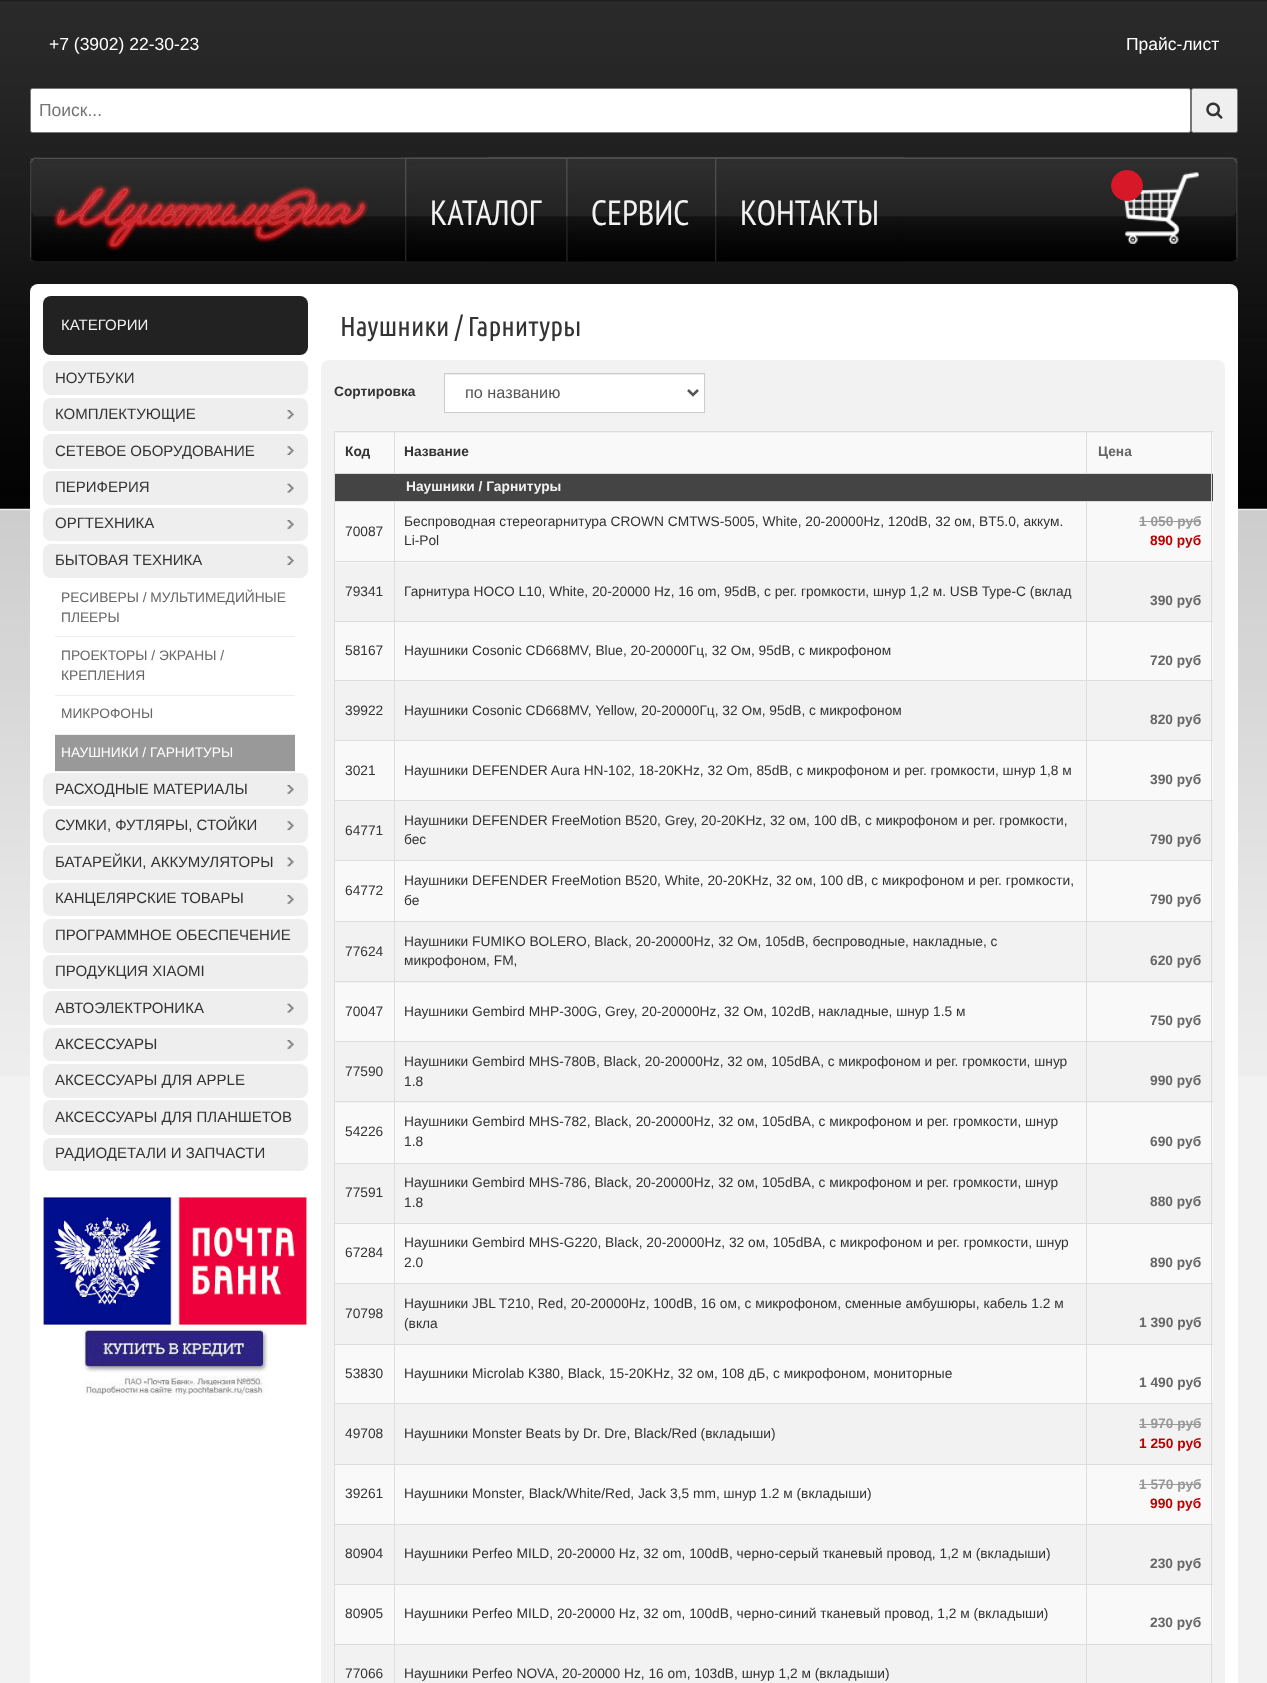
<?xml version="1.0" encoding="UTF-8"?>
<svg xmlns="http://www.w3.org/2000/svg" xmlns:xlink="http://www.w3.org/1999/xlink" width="1267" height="1683">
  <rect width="100%" height="100%" fill="#f2f2f2" />
  <image x="0" y="0" width="1267" height="1076" xlink:href="image1.png" />
  <rect x="30.5" y="88.5" width="1160" height="44" rx="2" fill="#ffffff" stroke="#767676" />
  <rect x="1191.5" y="88.5" width="46" height="44" rx="2" fill="#efefef" stroke="#767676" />
  <image x="1206" y="102" width="17" height="17" xlink:href="image2.png" />
  <image x="487" y="157" width="751" height="105" xlink:href="image3.png" />
  <image x="30" y="157" width="375" height="104" xlink:href="image4.png" />
  <image x="405" y="157" width="161" height="105" xlink:href="image5.png" />
  <image x="566" y="157" width="149" height="105" xlink:href="image6.png" />
  <image x="715" y="157" width="189" height="105" xlink:href="image7.png" />
  <image x="1123" y="172" width="76" height="72" xlink:href="image8.png" />
  <rect x="1111.5" y="170.5" width="31" height="30" rx="15" fill="#d71828" stroke="#d71828" />
  <rect x="30" y="284" width="1208" height="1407" rx="8" fill="#ffffff" />
  <rect x="43" y="296" width="265" height="59" rx="8" fill="#222222" />
  <rect x="43" y="361" width="265" height="34" rx="8" fill="#eeeeee" />
  <rect x="43" y="398" width="265" height="33" rx="8" fill="#eeeeee" />
  <image x="287" y="410" width="7" height="9" xlink:href="image9.png" />
  <rect x="43" y="434" width="265" height="35" rx="8" fill="#eeeeee" />
  <image x="287" y="446" width="7" height="9" xlink:href="image10.png" />
  <rect x="43" y="471" width="265" height="34" rx="8" fill="#eeeeee" />
  <image x="287" y="483" width="7" height="10" xlink:href="image11.png" />
  <rect x="43" y="508" width="265" height="33" rx="8" fill="#eeeeee" />
  <image x="287" y="520" width="7" height="9" xlink:href="image9.png" />
  <rect x="43" y="544" width="265" height="34" rx="8" fill="#eeeeee" />
  <image x="287" y="556" width="7" height="9" xlink:href="image10.png" />
  <rect x="55" y="636" width="240" height="1" fill="#eeeeee" />
  <rect x="55" y="695" width="240" height="1" fill="#eeeeee" />
  <rect x="55" y="734" width="240" height="1" fill="#eeeeee" />
  <rect x="55" y="771" width="240" height="1" fill="#eeeeee" />
  <rect x="55" y="735" width="240" height="36" fill="#999999" />
  <rect x="43" y="773" width="265" height="33" rx="8" fill="#eeeeee" />
  <image x="287" y="785" width="7" height="9" xlink:href="image9.png" />
  <rect x="43" y="809" width="265" height="34" rx="8" fill="#eeeeee" />
  <image x="287" y="821" width="7" height="9" xlink:href="image10.png" />
  <rect x="43" y="845" width="265" height="35" rx="8" fill="#eeeeee" />
  <image x="287" y="857" width="7" height="10" xlink:href="image12.png" />
  <rect x="43" y="883" width="265" height="33" rx="8" fill="#eeeeee" />
  <image x="287" y="895" width="7" height="9" xlink:href="image9.png" />
  <rect x="43" y="919" width="265" height="34" rx="8" fill="#eeeeee" />
  <rect x="43" y="955" width="265" height="34" rx="8" fill="#eeeeee" />
  <rect x="43" y="991" width="265" height="34" rx="8" fill="#eeeeee" />
  <image x="287" y="1003" width="7" height="10" xlink:href="image11.png" />
  <rect x="43" y="1028" width="265" height="33" rx="8" fill="#eeeeee" />
  <image x="287" y="1040" width="7" height="9" xlink:href="image9.png" />
  <rect x="43" y="1064" width="265" height="34" rx="8" fill="#eeeeee" />
  <rect x="43" y="1100" width="265" height="35" rx="8" fill="#eeeeee" />
  <rect x="43" y="1138" width="265" height="33" rx="8" fill="#eeeeee" />
  <image x="43" y="1196" width="264" height="200" xlink:href="image13.png" />
  <rect x="321" y="360" width="904" height="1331" rx="8" fill="#f2f2f2" />
  <rect x="445" y="375" width="259" height="37" fill="#ffffff" />
  <rect x="445" y="374" width="259" height="1" fill="#ececec" />
  <rect x="444.5" y="373.5" width="260" height="39" fill="none" stroke="#cccccc" />
  <path d="M 688 390 l 5 5 l 5 -5" fill="none" stroke="#555555" stroke-width="2.5" />
  <rect x="334" y="431" width="879" height="1" fill="#dddddd" />
  <rect x="395" y="433" width="818" height="40" fill="#f9f9f9" />
  <rect x="335" y="474" width="878" height="27" fill="#444444" />
  <rect x="395" y="502" width="818" height="61" fill="#f9f9f9" />
  <rect x="395" y="622" width="818" height="58" fill="#f9f9f9" />
  <rect x="395" y="741" width="818" height="59" fill="#f9f9f9" />
  <rect x="395" y="861" width="818" height="60" fill="#f9f9f9" />
  <rect x="395" y="983" width="818" height="58" fill="#f9f9f9" />
  <rect x="395" y="1103" width="818" height="60" fill="#f9f9f9" />
  <rect x="395" y="1224" width="818" height="59" fill="#f9f9f9" />
  <rect x="395" y="1345" width="818" height="58" fill="#f9f9f9" />
  <rect x="395" y="1465" width="818" height="59" fill="#f9f9f9" />
  <rect x="395" y="1585" width="818" height="59" fill="#f9f9f9" />
  <rect x="1211" y="431" width="1" height="1252" fill="#dddddd" />
  <rect x="334" y="431" width="1" height="1252" fill="#dddddd" />
  <rect x="335" y="433" width="59" height="40" fill="#f9f9f9" />
  <rect x="334" y="473" width="879" height="1" fill="#dddddd" />
  <rect x="394" y="431" width="1" height="43" fill="#dddddd" />
  <rect x="1086" y="431" width="1" height="43" fill="#dddddd" />
  <rect x="335" y="502" width="59" height="61" fill="#f9f9f9" />
  <rect x="1086" y="501" width="127" height="1" fill="#dddddd" />
  <rect x="1086" y="561" width="127" height="1" fill="#dddddd" />
  <rect x="1086" y="621" width="127" height="1" fill="#dddddd" />
  <rect x="1086" y="680" width="127" height="1" fill="#dddddd" />
  <rect x="1086" y="740" width="127" height="1" fill="#dddddd" />
  <rect x="1086" y="800" width="127" height="1" fill="#dddddd" />
  <rect x="1086" y="860" width="127" height="1" fill="#dddddd" />
  <rect x="1086" y="921" width="127" height="1" fill="#dddddd" />
  <rect x="1086" y="981" width="127" height="1" fill="#dddddd" />
  <rect x="1086" y="1041" width="127" height="1" fill="#dddddd" />
  <rect x="1086" y="1101" width="127" height="1" fill="#dddddd" />
  <rect x="1086" y="1163" width="127" height="1" fill="#dddddd" />
  <rect x="1086" y="1223" width="127" height="1" fill="#dddddd" />
  <rect x="1086" y="1283" width="127" height="1" fill="#dddddd" />
  <rect x="1086" y="1344" width="127" height="1" fill="#dddddd" />
  <rect x="1086" y="1403" width="127" height="1" fill="#dddddd" />
  <rect x="1086" y="1464" width="127" height="1" fill="#dddddd" />
  <rect x="1086" y="1524" width="127" height="1" fill="#dddddd" />
  <rect x="1086" y="1584" width="127" height="1" fill="#dddddd" />
  <rect x="1086" y="1644" width="127" height="1" fill="#dddddd" />
  <rect x="1086" y="1644" width="1" height="39" fill="#dddddd" />
  <rect x="394" y="1644" width="694" height="1" fill="#dddddd" />
  <rect x="1086" y="1584" width="1" height="61" fill="#dddddd" />
  <rect x="394" y="1584" width="694" height="1" fill="#dddddd" />
  <rect x="1086" y="1524" width="1" height="61" fill="#dddddd" />
  <rect x="394" y="1524" width="694" height="1" fill="#dddddd" />
  <rect x="1086" y="1464" width="1" height="61" fill="#dddddd" />
  <rect x="394" y="1464" width="694" height="1" fill="#dddddd" />
  <rect x="1086" y="1403" width="1" height="62" fill="#dddddd" />
  <rect x="394" y="1403" width="694" height="1" fill="#dddddd" />
  <rect x="1086" y="1344" width="1" height="60" fill="#dddddd" />
  <rect x="394" y="1344" width="694" height="1" fill="#dddddd" />
  <rect x="1086" y="1283" width="1" height="62" fill="#dddddd" />
  <rect x="394" y="1283" width="694" height="1" fill="#dddddd" />
  <rect x="1086" y="1223" width="1" height="61" fill="#dddddd" />
  <rect x="394" y="1223" width="694" height="1" fill="#dddddd" />
  <rect x="1086" y="1163" width="1" height="61" fill="#dddddd" />
  <rect x="394" y="1163" width="694" height="1" fill="#dddddd" />
  <rect x="1086" y="1101" width="1" height="63" fill="#dddddd" />
  <rect x="394" y="1101" width="694" height="1" fill="#dddddd" />
  <rect x="1086" y="1041" width="1" height="62" fill="#dddddd" />
  <rect x="394" y="1041" width="694" height="1" fill="#dddddd" />
  <rect x="1086" y="981" width="1" height="62" fill="#dddddd" />
  <rect x="394" y="981" width="694" height="1" fill="#dddddd" />
  <rect x="1086" y="921" width="1" height="62" fill="#dddddd" />
  <rect x="394" y="921" width="694" height="1" fill="#dddddd" />
  <rect x="1086" y="860" width="1" height="63" fill="#dddddd" />
  <rect x="394" y="860" width="694" height="1" fill="#dddddd" />
  <rect x="1086" y="800" width="1" height="61" fill="#dddddd" />
  <rect x="394" y="800" width="694" height="1" fill="#dddddd" />
  <rect x="1086" y="740" width="1" height="61" fill="#dddddd" />
  <rect x="394" y="740" width="694" height="1" fill="#dddddd" />
  <rect x="1086" y="680" width="1" height="61" fill="#dddddd" />
  <rect x="394" y="680" width="694" height="1" fill="#dddddd" />
  <rect x="1086" y="621" width="1" height="60" fill="#dddddd" />
  <rect x="394" y="621" width="694" height="1" fill="#dddddd" />
  <rect x="1086" y="561" width="1" height="62" fill="#dddddd" />
  <rect x="394" y="561" width="694" height="1" fill="#dddddd" />
  <rect x="1086" y="501" width="1" height="62" fill="#dddddd" />
  <rect x="394" y="501" width="694" height="1" fill="#dddddd" />
  <rect x="394" y="1644" width="1" height="39" fill="#dddddd" />
  <rect x="334" y="1644" width="61" height="1" fill="#dddddd" />
  <rect x="394" y="1584" width="1" height="61" fill="#dddddd" />
  <rect x="334" y="1584" width="61" height="1" fill="#dddddd" />
  <rect x="394" y="1524" width="1" height="61" fill="#dddddd" />
  <rect x="334" y="1524" width="61" height="1" fill="#dddddd" />
  <rect x="394" y="1464" width="1" height="61" fill="#dddddd" />
  <rect x="334" y="1464" width="61" height="1" fill="#dddddd" />
  <rect x="394" y="1403" width="1" height="62" fill="#dddddd" />
  <rect x="334" y="1403" width="61" height="1" fill="#dddddd" />
  <rect x="394" y="1344" width="1" height="60" fill="#dddddd" />
  <rect x="334" y="1344" width="61" height="1" fill="#dddddd" />
  <rect x="394" y="1283" width="1" height="62" fill="#dddddd" />
  <rect x="334" y="1283" width="61" height="1" fill="#dddddd" />
  <rect x="394" y="1223" width="1" height="61" fill="#dddddd" />
  <rect x="334" y="1223" width="61" height="1" fill="#dddddd" />
  <rect x="394" y="1163" width="1" height="61" fill="#dddddd" />
  <rect x="334" y="1163" width="61" height="1" fill="#dddddd" />
  <rect x="394" y="1101" width="1" height="63" fill="#dddddd" />
  <rect x="334" y="1101" width="61" height="1" fill="#dddddd" />
  <rect x="394" y="1041" width="1" height="62" fill="#dddddd" />
  <rect x="334" y="1041" width="61" height="1" fill="#dddddd" />
  <rect x="394" y="981" width="1" height="62" fill="#dddddd" />
  <rect x="334" y="981" width="61" height="1" fill="#dddddd" />
  <rect x="394" y="921" width="1" height="62" fill="#dddddd" />
  <rect x="334" y="921" width="61" height="1" fill="#dddddd" />
  <rect x="394" y="860" width="1" height="63" fill="#dddddd" />
  <rect x="334" y="860" width="61" height="1" fill="#dddddd" />
  <rect x="394" y="800" width="1" height="61" fill="#dddddd" />
  <rect x="334" y="800" width="61" height="1" fill="#dddddd" />
  <rect x="394" y="740" width="1" height="61" fill="#dddddd" />
  <rect x="334" y="740" width="61" height="1" fill="#dddddd" />
  <rect x="394" y="680" width="1" height="61" fill="#dddddd" />
  <rect x="334" y="680" width="61" height="1" fill="#dddddd" />
  <rect x="394" y="621" width="1" height="60" fill="#dddddd" />
  <rect x="334" y="621" width="61" height="1" fill="#dddddd" />
  <rect x="394" y="561" width="1" height="62" fill="#dddddd" />
  <rect x="334" y="561" width="61" height="1" fill="#dddddd" />
  <rect x="394" y="501" width="1" height="62" fill="#dddddd" />
  <rect x="334" y="501" width="61" height="1" fill="#dddddd" />
  <rect x="1139" y="521" width="62" height="1" fill="#999999" />
  <rect x="335" y="622" width="59" height="58" fill="#f9f9f9" />
  <rect x="335" y="741" width="59" height="59" fill="#f9f9f9" />
  <rect x="335" y="861" width="59" height="60" fill="#f9f9f9" />
  <rect x="335" y="983" width="59" height="58" fill="#f9f9f9" />
  <rect x="335" y="1103" width="59" height="60" fill="#f9f9f9" />
  <rect x="335" y="1224" width="59" height="59" fill="#f9f9f9" />
  <rect x="335" y="1345" width="59" height="58" fill="#f9f9f9" />
  <rect x="1139" y="1424" width="62" height="1" fill="#999999" />
  <rect x="335" y="1465" width="59" height="59" fill="#f9f9f9" />
  <rect x="1139" y="1484" width="62" height="1" fill="#999999" />
  <rect x="335" y="1585" width="59" height="59" fill="#f9f9f9" />
  <text x="49" y="50" style="font-family: Liberation Sans; font-size: 17.5px; fill: #ffffff">+7 (3902) 22-30-23</text>
  <text x="1126" y="50" style="font-family: Liberation Sans; font-size: 17.5px; fill: #ffffff">Прайс-лист</text>
  <text x="39" y="116" style="font-family: Liberation Sans; font-size: 17.5px; fill: #757575">Поиск...</text>
  <text x="430" y="225" style="font-family: PT Sans Narrow; font-size: 35px; fill: #f2f2f2">КАТАЛОГ</text>
  <text x="591" y="225" style="font-family: PT Sans Narrow; font-size: 35px; fill: #f2f2f2">СЕРВИС</text>
  <text x="740" y="225" style="font-family: PT Sans Narrow; font-size: 35px; fill: #f2f2f2">КОНТАКТЫ</text>
  <text x="61" y="330" style="font-family: Liberation Sans; font-size: 15px; fill: #f2f2f2">КАТЕГОРИИ</text>
  <text x="55" y="383" style="font-family: Liberation Sans; font-size: 15px; fill: #333333">НОУТБУКИ</text>
  <text x="55" y="419" style="font-family: Liberation Sans; font-size: 15px; fill: #333333">КОМПЛЕКТУЮЩИЕ</text>
  <text x="55" y="456" style="font-family: Liberation Sans; font-size: 15px; fill: #333333">СЕТЕВОЕ ОБОРУДОВАНИЕ</text>
  <text x="55" y="492" style="font-family: Liberation Sans; font-size: 15px; fill: #333333">ПЕРИФЕРИЯ</text>
  <text x="55" y="528" style="font-family: Liberation Sans; font-size: 15px; fill: #333333">ОРГТЕХНИКА</text>
  <text x="55" y="565" style="font-family: Liberation Sans; font-size: 15px; fill: #333333">БЫТОВАЯ ТЕХНИКА</text>
  <text x="61" y="602" style="font-family: Liberation Sans; font-size: 13.75px; fill: #666666">РЕСИВЕРЫ / МУЛЬТИМЕДИЙНЫЕ</text>
  <text x="61" y="622" style="font-family: Liberation Sans; font-size: 13.75px; fill: #666666">ПЛЕЕРЫ</text>
  <text x="61" y="660" style="font-family: Liberation Sans; font-size: 13.75px; fill: #666666">ПРОЕКТОРЫ / ЭКРАНЫ /</text>
  <text x="61" y="680" style="font-family: Liberation Sans; font-size: 13.75px; fill: #666666">КРЕПЛЕНИЯ</text>
  <text x="61" y="718" style="font-family: Liberation Sans; font-size: 13.75px; fill: #666666">МИКРОФОНЫ</text>
  <text x="61" y="757" style="font-family: Liberation Sans; font-size: 13.75px; fill: #ffffff">НАУШНИКИ / ГАРНИТУРЫ</text>
  <text x="55" y="794" style="font-family: Liberation Sans; font-size: 15px; fill: #333333">РАСХОДНЫЕ МАТЕРИАЛЫ</text>
  <text x="55" y="830" style="font-family: Liberation Sans; font-size: 15px; fill: #333333">СУМКИ, ФУТЛЯРЫ, СТОЙКИ</text>
  <text x="55" y="867" style="font-family: Liberation Sans; font-size: 15px; fill: #333333">БАТАРЕЙКИ, АККУМУЛЯТОРЫ</text>
  <text x="55" y="903" style="font-family: Liberation Sans; font-size: 15px; fill: #333333">КАНЦЕЛЯРСКИЕ ТОВАРЫ</text>
  <text x="55" y="940" style="font-family: Liberation Sans; font-size: 15px; fill: #333333">ПРОГРАММНОЕ ОБЕСПЕЧЕНИЕ</text>
  <text x="55" y="976" style="font-family: Liberation Sans; font-size: 15px; fill: #333333">ПРОДУКЦИЯ XIAOMI</text>
  <text x="55" y="1013" style="font-family: Liberation Sans; font-size: 15px; fill: #333333">АВТОЭЛЕКТРОНИКА</text>
  <text x="55" y="1049" style="font-family: Liberation Sans; font-size: 15px; fill: #333333">АКСЕССУАРЫ</text>
  <text x="55" y="1085" style="font-family: Liberation Sans; font-size: 15px; fill: #333333">АКСЕССУАРЫ ДЛЯ APPLE</text>
  <text x="55" y="1122" style="font-family: Liberation Sans; font-size: 15px; fill: #333333">АКСЕССУАРЫ ДЛЯ ПЛАНШЕТОВ</text>
  <text x="55" y="1158" style="font-family: Liberation Sans; font-size: 15px; fill: #333333">РАДИОДЕТАЛИ И ЗАПЧАСТИ</text>
  <text x="340" y="336" style="font-family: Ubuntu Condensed; font-size: 27.5px; fill: #333333">Наушники / Гарнитуры</text>
  <text x="334" y="396" style="font-family: Liberation Sans; font-size: 13.75px; font-weight: bold; fill: #333333">Сортировка</text>
  <text x="465" y="398" style="font-family: Liberation Sans; font-size: 16.25px; fill: #555555">по названию</text>
  <text x="345" y="456" style="font-family: Liberation Sans; font-size: 13.75px; font-weight: bold; fill: #333333">Код</text>
  <text x="404" y="456" style="font-family: Liberation Sans; font-size: 13.75px; font-weight: bold; fill: #333333">Название</text>
  <text x="1098" y="456" style="font-family: Liberation Sans; font-size: 13.75px; font-weight: bold; fill: #666666">Цена</text>
  <text x="406" y="491" style="font-family: Liberation Sans; font-size: 13.75px; font-weight: bold; fill: #f2f2f2">Наушники / Гарнитуры</text>
  <text x="345" y="536" style="font-family: Liberation Sans; font-size: 13.75px; fill: #333333">70087</text>
  <text x="404" y="526" style="font-family: Liberation Sans; font-size: 13.75px; fill: #333333">Беспроводная стереогарнитура CROWN CMTWS-5005, White, 20-20000Hz, 120dB, 32 ом, BT5.0, аккум.</text>
  <text x="404" y="545" style="font-family: Liberation Sans; font-size: 13.75px; fill: #333333">Li-Pol</text>
  <text x="1139" y="526" style="font-family: Liberation Sans; font-size: 13.75px; font-weight: bold; fill: #999999">1 050 руб</text>
  <text x="1150" y="545" style="font-family: Liberation Sans; font-size: 13.75px; font-weight: bold; fill: #bb0000">890 руб</text>
  <text x="345" y="596" style="font-family: Liberation Sans; font-size: 13.75px; fill: #333333">79341</text>
  <text x="404" y="596" style="font-family: Liberation Sans; font-size: 13.75px; fill: #333333">Гарнитура HOCO L10, White, 20-20000 Hz, 16 om, 95dB, с рег. громкости, шнур 1,2 м. USB Type-C (вклад</text>
  <text x="1150" y="605" style="font-family: Liberation Sans; font-size: 13.75px; font-weight: bold; fill: #666666">390 руб</text>
  <text x="345" y="655" style="font-family: Liberation Sans; font-size: 13.75px; fill: #333333">58167</text>
  <text x="404" y="655" style="font-family: Liberation Sans; font-size: 13.75px; fill: #333333">Наушники Cosonic CD668MV, Blue, 20-20000Гц, 32 Ом, 95dB, с микрофоном</text>
  <text x="1150" y="665" style="font-family: Liberation Sans; font-size: 13.75px; font-weight: bold; fill: #666666">720 руб</text>
  <text x="345" y="715" style="font-family: Liberation Sans; font-size: 13.75px; fill: #333333">39922</text>
  <text x="404" y="715" style="font-family: Liberation Sans; font-size: 13.75px; fill: #333333">Наушники Cosonic CD668MV, Yellow, 20-20000Гц, 32 Ом, 95dB, с микрофоном</text>
  <text x="1150" y="724" style="font-family: Liberation Sans; font-size: 13.75px; font-weight: bold; fill: #666666">820 руб</text>
  <text x="345" y="775" style="font-family: Liberation Sans; font-size: 13.75px; fill: #333333">3021</text>
  <text x="404" y="775" style="font-family: Liberation Sans; font-size: 13.75px; fill: #333333">Наушники DEFENDER Aura HN-102, 18-20KHz, 32 Om, 85dB, с микрофоном и рег. громкости, шнур 1,8 м</text>
  <text x="1150" y="784" style="font-family: Liberation Sans; font-size: 13.75px; font-weight: bold; fill: #666666">390 руб</text>
  <text x="345" y="835" style="font-family: Liberation Sans; font-size: 13.75px; fill: #333333">64771</text>
  <text x="404" y="825" style="font-family: Liberation Sans; font-size: 13.75px; fill: #333333">Наушники DEFENDER FreeMotion B520, Grey, 20-20KHz, 32 oм, 100 dB, с микрофоном и рег. громкости,</text>
  <text x="404" y="844" style="font-family: Liberation Sans; font-size: 13.75px; fill: #333333">бес</text>
  <text x="1150" y="844" style="font-family: Liberation Sans; font-size: 13.75px; font-weight: bold; fill: #666666">790 руб</text>
  <text x="345" y="895" style="font-family: Liberation Sans; font-size: 13.75px; fill: #333333">64772</text>
  <text x="404" y="885" style="font-family: Liberation Sans; font-size: 13.75px; fill: #333333">Наушники DEFENDER FreeMotion B520, White, 20-20KHz, 32 oм, 100 dB, с микрофоном и рег. громкости,</text>
  <text x="404" y="905" style="font-family: Liberation Sans; font-size: 13.75px; fill: #333333">бе</text>
  <text x="1150" y="904" style="font-family: Liberation Sans; font-size: 13.75px; font-weight: bold; fill: #666666">790 руб</text>
  <text x="345" y="956" style="font-family: Liberation Sans; font-size: 13.75px; fill: #333333">77624</text>
  <text x="404" y="946" style="font-family: Liberation Sans; font-size: 13.75px; fill: #333333">Наушники FUMIKO BOLERO, Black, 20-20000Hz, 32 Ом, 105dB, беспроводные, накладные, с</text>
  <text x="404" y="965" style="font-family: Liberation Sans; font-size: 13.75px; fill: #333333">микрофоном, FM,</text>
  <text x="1150" y="965" style="font-family: Liberation Sans; font-size: 13.75px; font-weight: bold; fill: #666666">620 руб</text>
  <text x="345" y="1016" style="font-family: Liberation Sans; font-size: 13.75px; fill: #333333">70047</text>
  <text x="404" y="1016" style="font-family: Liberation Sans; font-size: 13.75px; fill: #333333">Наушники Gembird MHP-300G, Grey, 20-20000Hz, 32 Ом, 102dB, накладные, шнур 1.5 м</text>
  <text x="1150" y="1025" style="font-family: Liberation Sans; font-size: 13.75px; font-weight: bold; fill: #666666">750 руб</text>
  <text x="345" y="1076" style="font-family: Liberation Sans; font-size: 13.75px; fill: #333333">77590</text>
  <text x="404" y="1066" style="font-family: Liberation Sans; font-size: 13.75px; fill: #333333">Наушники Gembird MHS-780B, Black, 20-20000Hz, 32 oм, 105dBA, с микрофоном и рег. громкости, шнур</text>
  <text x="404" y="1086" style="font-family: Liberation Sans; font-size: 13.75px; fill: #333333">1.8</text>
  <text x="1150" y="1085" style="font-family: Liberation Sans; font-size: 13.75px; font-weight: bold; fill: #666666">990 руб</text>
  <text x="345" y="1136" style="font-family: Liberation Sans; font-size: 13.75px; fill: #333333">54226</text>
  <text x="404" y="1126" style="font-family: Liberation Sans; font-size: 13.75px; fill: #333333">Наушники Gembird MHS-782, Black, 20-20000Hz, 32 oм, 105dBA, с микрофоном и рег. громкости, шнур</text>
  <text x="404" y="1146" style="font-family: Liberation Sans; font-size: 13.75px; fill: #333333">1.8</text>
  <text x="1150" y="1146" style="font-family: Liberation Sans; font-size: 13.75px; font-weight: bold; fill: #666666">690 руб</text>
  <text x="345" y="1197" style="font-family: Liberation Sans; font-size: 13.75px; fill: #333333">77591</text>
  <text x="404" y="1187" style="font-family: Liberation Sans; font-size: 13.75px; fill: #333333">Наушники Gembird MHS-786, Black, 20-20000Hz, 32 oм, 105dBA, с микрофоном и рег. громкости, шнур</text>
  <text x="404" y="1207" style="font-family: Liberation Sans; font-size: 13.75px; fill: #333333">1.8</text>
  <text x="1150" y="1206" style="font-family: Liberation Sans; font-size: 13.75px; font-weight: bold; fill: #666666">880 руб</text>
  <text x="345" y="1257" style="font-family: Liberation Sans; font-size: 13.75px; fill: #333333">67284</text>
  <text x="404" y="1247" style="font-family: Liberation Sans; font-size: 13.75px; fill: #333333">Наушники Gembird MHS-G220, Black, 20-20000Hz, 32 oм, 105dBA, с микрофоном и рег. громкости, шнур</text>
  <text x="404" y="1267" style="font-family: Liberation Sans; font-size: 13.75px; fill: #333333">2.0</text>
  <text x="1150" y="1267" style="font-family: Liberation Sans; font-size: 13.75px; font-weight: bold; fill: #666666">890 руб</text>
  <text x="345" y="1318" style="font-family: Liberation Sans; font-size: 13.75px; fill: #333333">70798</text>
  <text x="404" y="1308" style="font-family: Liberation Sans; font-size: 13.75px; fill: #333333">Наушники JBL T210, Red, 20-20000Hz, 100dB, 16 ом, с микрофоном, сменные амбушюры, кабель 1.2 м</text>
  <text x="404" y="1328" style="font-family: Liberation Sans; font-size: 13.75px; fill: #333333">(вкла</text>
  <text x="1139" y="1327" style="font-family: Liberation Sans; font-size: 13.75px; font-weight: bold; fill: #666666">1 390 руб</text>
  <text x="345" y="1378" style="font-family: Liberation Sans; font-size: 13.75px; fill: #333333">53830</text>
  <text x="404" y="1378" style="font-family: Liberation Sans; font-size: 13.75px; fill: #333333">Наушники Microlab K380, Black, 15-20KHz, 32 oм, 108 дБ, с микрофоном, мониторные</text>
  <text x="1139" y="1387" style="font-family: Liberation Sans; font-size: 13.75px; font-weight: bold; fill: #666666">1 490 руб</text>
  <text x="345" y="1438" style="font-family: Liberation Sans; font-size: 13.75px; fill: #333333">49708</text>
  <text x="404" y="1438" style="font-family: Liberation Sans; font-size: 13.75px; fill: #333333">Наушники Monster Beats by Dr. Dre, Black/Red (вкладыши)</text>
  <text x="1139" y="1428" style="font-family: Liberation Sans; font-size: 13.75px; font-weight: bold; fill: #999999">1 970 руб</text>
  <text x="1139" y="1448" style="font-family: Liberation Sans; font-size: 13.75px; font-weight: bold; fill: #bb0000">1 250 руб</text>
  <text x="345" y="1498" style="font-family: Liberation Sans; font-size: 13.75px; fill: #333333">39261</text>
  <text x="404" y="1498" style="font-family: Liberation Sans; font-size: 13.75px; fill: #333333">Наушники Monster, Black/White/Red, Jack 3,5 mm, шнур 1.2 м (вкладыши)</text>
  <text x="1139" y="1489" style="font-family: Liberation Sans; font-size: 13.75px; font-weight: bold; fill: #999999">1 570 руб</text>
  <text x="1150" y="1508" style="font-family: Liberation Sans; font-size: 13.75px; font-weight: bold; fill: #bb0000">990 руб</text>
  <text x="345" y="1558" style="font-family: Liberation Sans; font-size: 13.75px; fill: #333333">80904</text>
  <text x="404" y="1558" style="font-family: Liberation Sans; font-size: 13.75px; fill: #333333">Наушники Perfeo MILD, 20-20000 Hz, 32 om, 100dB, черно-серый тканевый провод, 1,2 м (вкладыши)</text>
  <text x="1150" y="1568" style="font-family: Liberation Sans; font-size: 13.75px; font-weight: bold; fill: #666666">230 руб</text>
  <text x="345" y="1618" style="font-family: Liberation Sans; font-size: 13.75px; fill: #333333">80905</text>
  <text x="404" y="1618" style="font-family: Liberation Sans; font-size: 13.75px; fill: #333333">Наушники Perfeo MILD, 20-20000 Hz, 32 om, 100dB, черно-синий тканевый провод, 1,2 м (вкладыши)</text>
  <text x="1150" y="1627" style="font-family: Liberation Sans; font-size: 13.75px; font-weight: bold; fill: #666666">230 руб</text>
  <text x="345" y="1678" style="font-family: Liberation Sans; font-size: 13.75px; fill: #333333">77066</text>
  <text x="404" y="1678" style="font-family: Liberation Sans; font-size: 13.75px; fill: #333333">Наушники Perfeo NOVA, 20-20000 Hz, 16 om, 103dB, шнур 1,2 м (вкладыши)</text>
</svg>
